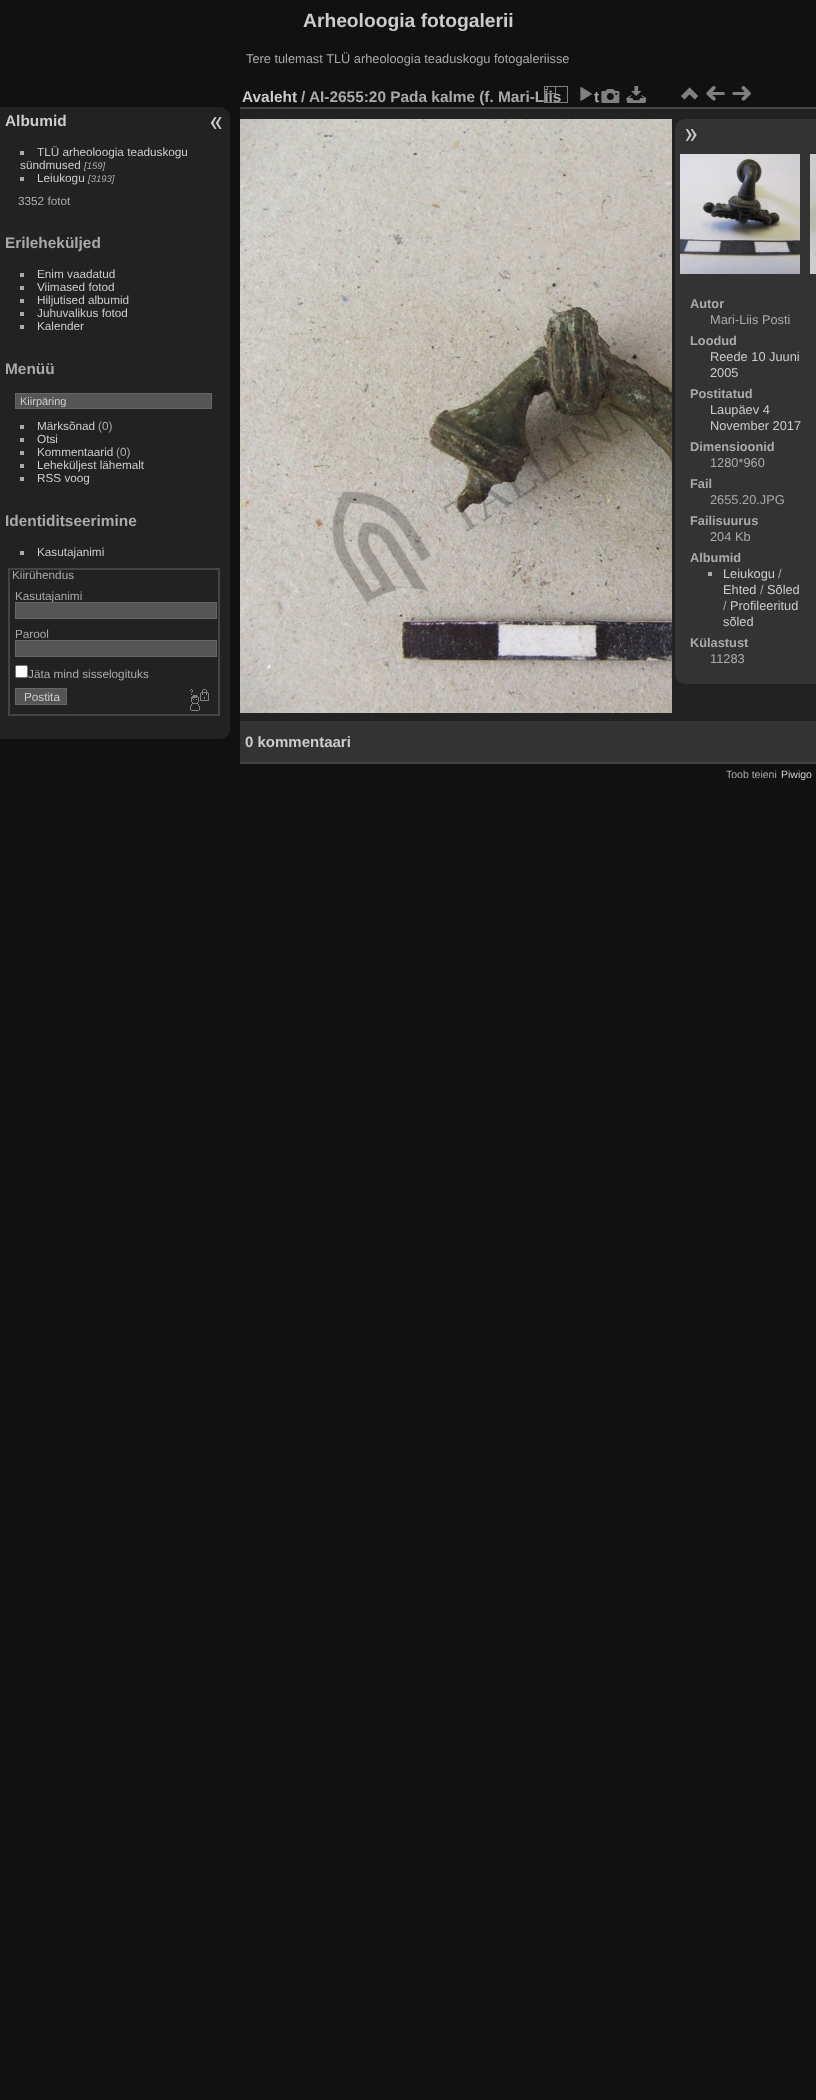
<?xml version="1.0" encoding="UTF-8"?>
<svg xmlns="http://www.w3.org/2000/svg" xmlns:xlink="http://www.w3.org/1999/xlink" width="816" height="2100">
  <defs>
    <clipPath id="clip1"><rect x="18" y="395" width="191" height="12" /></clipPath>
  </defs>
  <rect width="100%" height="100%" fill="#111111" />
  <path d="M 0 107 h 220 c 5.5 0 10 4.5 10 10 v 612 c 0 5.5 -4.5 10 -10 10 h -220 z" fill="#222222" />
  <rect x="20" y="151" width="4" height="4" fill="#aaaaaa" />
  <rect x="20" y="177" width="4" height="4" fill="#aaaaaa" />
  <rect x="20" y="273" width="4" height="4" fill="#aaaaaa" />
  <rect x="20" y="286" width="4" height="4" fill="#aaaaaa" />
  <rect x="20" y="299" width="4" height="4" fill="#aaaaaa" />
  <rect x="20" y="312" width="4" height="4" fill="#aaaaaa" />
  <rect x="20" y="325" width="4" height="4" fill="#aaaaaa" />
  <rect x="15.5" y="393.5" width="196" height="15" fill="#555555" stroke="#666666" />
  <rect x="20" y="425" width="4" height="4" fill="#aaaaaa" />
  <rect x="20" y="438" width="4" height="4" fill="#aaaaaa" />
  <rect x="20" y="451" width="4" height="4" fill="#aaaaaa" />
  <rect x="20" y="464" width="4" height="4" fill="#aaaaaa" />
  <rect x="20" y="477" width="4" height="4" fill="#aaaaaa" />
  <rect x="20" y="551" width="4" height="4" fill="#aaaaaa" />
  <rect x="9" y="569" width="210" height="146" fill="none" stroke="#444444" stroke-width="2" />
  <rect x="15.5" y="640.5" width="201" height="16" fill="#555555" stroke="#666666" />
  <rect x="15.5" y="665.5" width="12" height="12" rx="1.5" fill="#ffffff" stroke="#767676" />
  <rect x="15.5" y="688.5" width="51" height="16" fill="#555555" stroke="#666666" />
  <image x="190" y="689" width="19" height="22" xlink:href="image1.png" />
  <image x="210" y="117" width="12" height="12" xlink:href="image2.png" />
  <rect x="240" y="109" width="576" height="612" fill="#222222" />
  <rect x="240" y="762" width="576" height="2" fill="#444444" />
  <rect x="240" y="107" width="576" height="2" fill="#444444" />
  <image x="580" y="87" width="12" height="14" xlink:href="image4.png" />
  <image x="601" y="89" width="19" height="14" xlink:href="image5.png" />
  <image x="626" y="86" width="21" height="17" xlink:href="image6.png" />
  <image x="681" y="87" width="17" height="13" xlink:href="image7.png" />
  <image x="706" y="86" width="19" height="15" xlink:href="image8.png" />
  <image x="732" y="86" width="19" height="15" xlink:href="image9.png" />
  <image x="240" y="119" width="432" height="594" xlink:href="image10.png" />
  <path d="M 685 119 h 131 v 565 h -131 c -5.5 0 -10 -4.5 -10 -10 v -545 c 0 -5.5 4.5 -10 10 -10 z" fill="#333333" />
  <image x="685" y="129" width="12" height="12" xlink:href="image11.png" />
  <image x="680" y="154" width="120" height="120" xlink:href="image12.png" />
  <image x="810" y="154" width="6" height="120" xlink:href="image13.png" />
  <rect x="708" y="572" width="4" height="4" fill="#aaaaaa" />
  <rect x="240" y="721" width="576" height="41" fill="#333333" />
  <text x="303" y="27" style="font-family: Liberation Sans; font-size: 19.25px; font-weight: bold; fill: #cccccc">Arheoloogia fotogalerii</text>
  <text x="246" y="63" style="font-family: Liberation Sans; font-size: 12.8px; fill: #aaaaaa">Tere tulemast TLÜ arheoloogia teaduskogu fotogaleriisse</text>
  <text x="5" y="126" style="font-family: Liberation Sans; font-size: 15.4px; font-weight: bold; fill: #cccccc">Albumid</text>
  <text x="37" y="156" style="font-family: Liberation Sans; font-size: 11.75px; fill: #cccccc">TLÜ arheoloogia teaduskogu</text>
  <text x="20" y="169" style="font-family: Liberation Sans; font-size: 11.75px; fill: #cccccc">sündmused</text>
  <text x="84" y="169" style="font-family: Liberation Sans; font-size: 9.5px; font-style: italic; fill: #aaaaaa">[159]</text>
  <text x="37" y="182" style="font-family: Liberation Sans; font-size: 11.75px; fill: #cccccc">Leiukogu</text>
  <text x="88" y="182" style="font-family: Liberation Sans; font-size: 9.5px; font-style: italic; fill: #aaaaaa">[3193]</text>
  <text x="18" y="205" style="font-family: Liberation Sans; font-size: 11.75px; fill: #aaaaaa">3352 fotot</text>
  <text x="5" y="248" style="font-family: Liberation Sans; font-size: 15.4px; font-weight: bold; fill: #aaaaaa">Erileheküljed</text>
  <text x="37" y="278" style="font-family: Liberation Sans; font-size: 11.75px; fill: #cccccc">Enim vaadatud</text>
  <text x="37" y="291" style="font-family: Liberation Sans; font-size: 11.75px; fill: #cccccc">Viimased fotod</text>
  <text x="37" y="304" style="font-family: Liberation Sans; font-size: 11.75px; fill: #cccccc">Hiljutised albumid</text>
  <text x="37" y="317" style="font-family: Liberation Sans; font-size: 11.75px; fill: #cccccc">Juhuvalikus fotod</text>
  <text x="37" y="330" style="font-family: Liberation Sans; font-size: 11.75px; fill: #cccccc">Kalender</text>
  <text x="5" y="374" style="font-family: Liberation Sans; font-size: 15.4px; font-weight: bold; fill: #aaaaaa">Menüü</text>
  <g clip-path="url(#clip1)">
    <text x="20" y="405" style="font-family: Liberation Sans; font-size: 11px; fill: #cccccc">Kiirpäring</text>
  </g>
  <text x="37" y="430" style="font-family: Liberation Sans; font-size: 11.75px; fill: #cccccc">Märksõnad</text>
  <text x="98" y="430" style="font-family: Liberation Sans; font-size: 11.75px; fill: #aaaaaa">(0)</text>
  <text x="37" y="443" style="font-family: Liberation Sans; font-size: 11.75px; fill: #cccccc">Otsi</text>
  <text x="37" y="456" style="font-family: Liberation Sans; font-size: 11.75px; fill: #cccccc">Kommentaarid</text>
  <text x="116" y="456" style="font-family: Liberation Sans; font-size: 11.75px; fill: #aaaaaa">(0)</text>
  <text x="37" y="469" style="font-family: Liberation Sans; font-size: 11.75px; fill: #cccccc">Leheküljest lähemalt</text>
  <text x="37" y="482" style="font-family: Liberation Sans; font-size: 11.75px; fill: #cccccc">RSS voog</text>
  <text x="5" y="526" style="font-family: Liberation Sans; font-size: 15.4px; font-weight: bold; fill: #aaaaaa">Identiditseerimine</text>
  <text x="37" y="556" style="font-family: Liberation Sans; font-size: 11.75px; fill: #cccccc">Kasutajanimi</text>
  <text x="12" y="579" style="font-family: Liberation Sans; font-size: 11.75px; fill: #aaaaaa">Kiirühendus</text>
  <text x="15" y="600" style="font-family: Liberation Sans; font-size: 11.75px; fill: #aaaaaa">Kasutajanimi</text>
  <rect x="15.5" y="602.5" width="201" height="16" fill="#555555" stroke="#666666" />
  <text x="15" y="638" style="font-family: Liberation Sans; font-size: 11.75px; fill: #aaaaaa">Parool</text>
  <text x="28" y="678" style="font-family: Liberation Sans; font-size: 11.75px; fill: #aaaaaa">Jäta mind sisselogituks</text>
  <text x="24" y="701" style="font-family: Liberation Sans; font-size: 11.75px; fill: #cccccc">Postita</text>
  <text x="242" y="102" style="font-family: Liberation Sans; font-size: 15.4px; font-weight: bold; fill: #cccccc">Avaleht</text>
  <text x="301" y="102" style="font-family: Liberation Sans; font-size: 15.4px; font-weight: bold; fill: #aaaaaa">/ AI-2655:20 Pada kalme (f. Mari-Liis</text>
  <text x="594" y="102" style="font-family: Liberation Sans; font-size: 15.4px; font-weight: bold; fill: #aaaaaa">t</text>
  <image x="544" y="86" width="24" height="17" xlink:href="image3.png" />
  <text x="690" y="308" style="font-family: Liberation Sans; font-size: 12.8px; font-weight: bold; fill: #aaaaaa">Autor</text>
  <text x="710" y="324" style="font-family: Liberation Sans; font-size: 12.8px; fill: #aaaaaa">Mari-Liis Posti</text>
  <text x="690" y="345" style="font-family: Liberation Sans; font-size: 12.8px; font-weight: bold; fill: #aaaaaa">Loodud</text>
  <text x="710" y="361" style="font-family: Liberation Sans; font-size: 12.8px; fill: #cccccc">Reede 10 Juuni</text>
  <text x="710" y="377" style="font-family: Liberation Sans; font-size: 12.8px; fill: #cccccc">2005</text>
  <text x="690" y="398" style="font-family: Liberation Sans; font-size: 12.8px; font-weight: bold; fill: #aaaaaa">Postitatud</text>
  <text x="710" y="414" style="font-family: Liberation Sans; font-size: 12.8px; fill: #cccccc">Laupäev 4</text>
  <text x="710" y="430" style="font-family: Liberation Sans; font-size: 12.8px; fill: #cccccc">November 2017</text>
  <text x="690" y="451" style="font-family: Liberation Sans; font-size: 12.8px; font-weight: bold; fill: #aaaaaa">Dimensioonid</text>
  <text x="710" y="467" style="font-family: Liberation Sans; font-size: 12.8px; fill: #aaaaaa">1280*960</text>
  <text x="690" y="488" style="font-family: Liberation Sans; font-size: 12.8px; font-weight: bold; fill: #aaaaaa">Fail</text>
  <text x="710" y="504" style="font-family: Liberation Sans; font-size: 12.8px; fill: #aaaaaa">2655.20.JPG</text>
  <text x="690" y="525" style="font-family: Liberation Sans; font-size: 12.8px; font-weight: bold; fill: #aaaaaa">Failisuurus</text>
  <text x="710" y="541" style="font-family: Liberation Sans; font-size: 12.8px; fill: #aaaaaa">204 Kb</text>
  <text x="690" y="562" style="font-family: Liberation Sans; font-size: 12.8px; font-weight: bold; fill: #aaaaaa">Albumid</text>
  <text x="723" y="578" style="font-family: Liberation Sans; font-size: 12.8px; fill: #cccccc">Leiukogu</text>
  <text x="778" y="578" style="font-family: Liberation Sans; font-size: 12.8px; fill: #aaaaaa">/</text>
  <text x="723" y="594" style="font-family: Liberation Sans; font-size: 12.8px; fill: #cccccc">Ehted</text>
  <text x="760" y="594" style="font-family: Liberation Sans; font-size: 12.8px; fill: #aaaaaa">/</text>
  <text x="767" y="594" style="font-family: Liberation Sans; font-size: 12.8px; fill: #cccccc">Sõled</text>
  <text x="723" y="610" style="font-family: Liberation Sans; font-size: 12.8px; fill: #aaaaaa">/</text>
  <text x="730" y="610" style="font-family: Liberation Sans; font-size: 12.8px; fill: #cccccc">Profileeritud</text>
  <text x="723" y="626" style="font-family: Liberation Sans; font-size: 12.8px; fill: #cccccc">sõled</text>
  <text x="690" y="647" style="font-family: Liberation Sans; font-size: 12.8px; font-weight: bold; fill: #aaaaaa">Külastust</text>
  <text x="710" y="663" style="font-family: Liberation Sans; font-size: 12.8px; fill: #aaaaaa">11283</text>
  <text x="245" y="747" style="font-family: Liberation Sans; font-size: 15px; font-weight: bold; fill: #cccccc">0 kommentaari</text>
  <text x="726" y="778" style="font-family: Liberation Sans; font-size: 10.5px; fill: #aaaaaa">Toob teieni</text>
  <text x="781" y="778" style="font-family: Liberation Sans; font-size: 10.5px; fill: #cccccc">Piwigo</text>
</svg>
